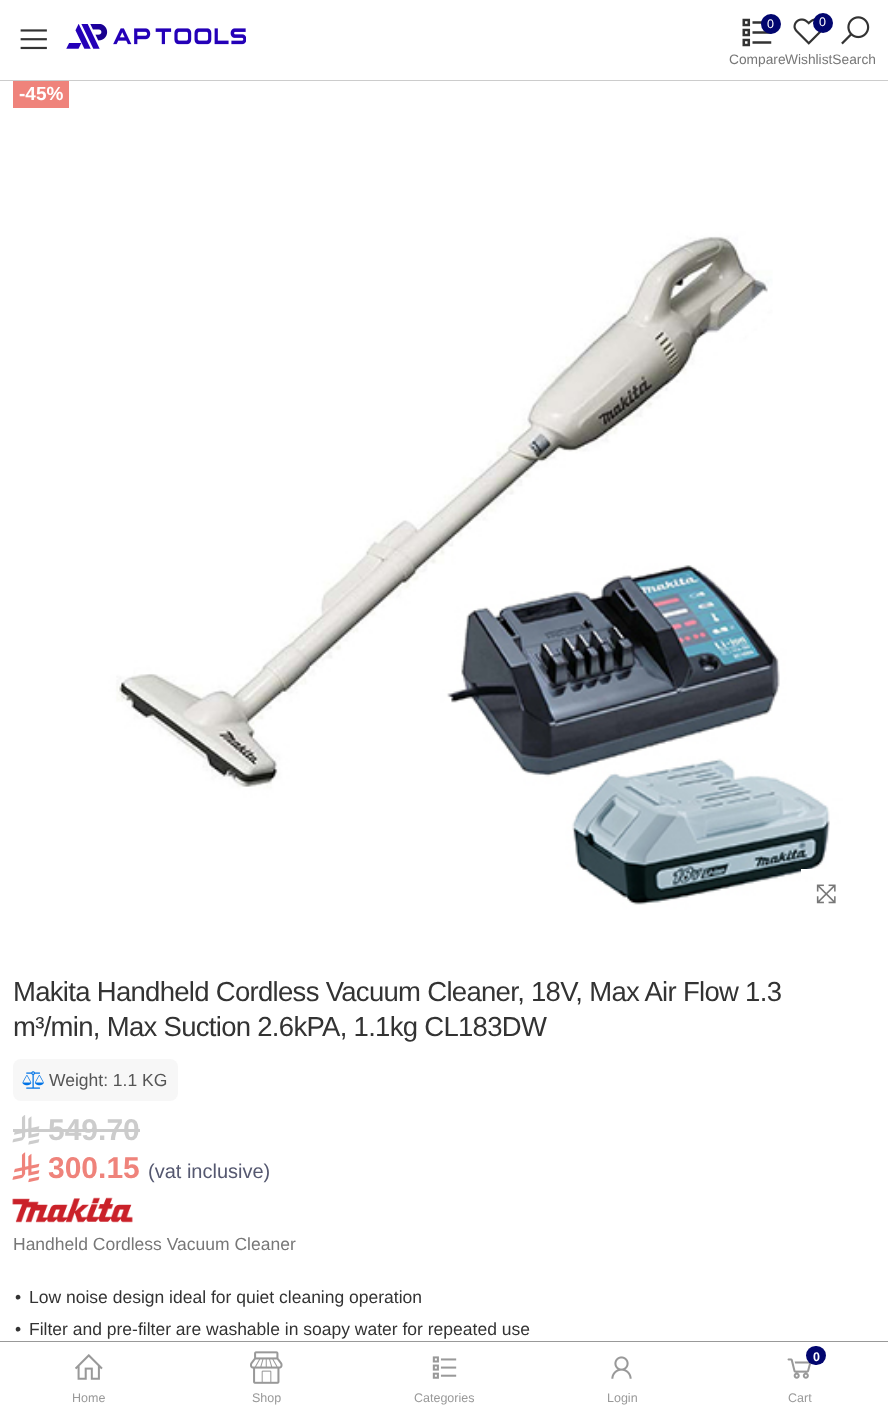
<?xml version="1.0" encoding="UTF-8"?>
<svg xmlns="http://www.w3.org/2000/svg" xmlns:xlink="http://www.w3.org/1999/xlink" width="888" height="1411">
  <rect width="100%" height="100%" fill="#ffffff" />
  <rect y="80" width="888" height="1" fill="#cccccc" />
  <image x="20" y="29" width="27" height="21" xlink:href="image1.png" />
  <image x="66" y="24" width="180" height="25" xlink:href="image2.png" />
  <image x="841" y="16" width="29" height="29" xlink:href="image3.png" />
  <image x="742" y="18" width="30" height="29" xlink:href="image4.png" />
  <circle cx="771" cy="24" r="10" fill="#02066f" />
  <image x="793" y="18" width="29" height="27" xlink:href="image5.png" />
  <circle cx="823" cy="23" r="10" fill="#02066f" />
  <image x="13" y="81" width="863" height="863" xlink:href="image6.png" />
  <rect x="13" y="81" width="56" height="27" fill="#ef837b" />
  <rect x="801" y="869" width="13" height="5" fill="#ffffff" />
  <image x="816" y="884" width="20" height="20" xlink:href="image7.png" />
  <rect x="13" y="1059" width="165" height="42" rx="8" fill="#f7f7f7" />
  <image x="22" y="1071" width="22" height="18" xlink:href="image8.png" />
  <image x="12" y="1115" width="28" height="30" xlink:href="image9.png" />
  <rect x="13" y="1129" width="127" height="3" fill="#cccccc" />
  <image x="12" y="1152" width="28" height="31" xlink:href="image10.png" />
  <image x="12" y="1197" width="121" height="26" xlink:href="image11.png" />
  <rect y="1341" width="888" height="1" fill="#999999" />
  <image x="75" y="1354" width="28" height="26" xlink:href="image12.png" />
  <image x="250" y="1351" width="33" height="33" xlink:href="image13.png" />
  <image x="432" y="1356" width="25" height="23" xlink:href="image14.png" />
  <image x="611" y="1356" width="21" height="23" xlink:href="image15.png" />
  <image x="787" y="1358" width="25" height="21" xlink:href="image16.png" />
  <rect x="806" y="1346" width="20" height="19" rx="9.5" fill="#02066f" />
  <text x="767" y="28" style="font-family: Liberation Sans; font-size: 12.5px; fill: #ffffff">0</text>
  <text x="729" y="64" style="font-family: Liberation Sans; font-size: 13.75px; fill: #777777">Compare</text>
  <text x="819" y="26" style="font-family: Liberation Sans; font-size: 12.5px; fill: #ffffff">0</text>
  <text x="785" y="64" style="font-family: Liberation Sans; font-size: 13.75px; fill: #777777">WishlistSearch</text>
  <text x="19" y="100" style="font-family: Liberation Sans; font-size: 19px; font-weight: bold; fill: #ffffff">-45%</text>
  <text x="13" y="1001" style="font-family: Liberation Sans; font-size: 27.5px; letter-spacing: -0.7px; fill: #333333">Makita Handheld Cordless Vacuum Cleaner, 18V, Max Air Flow 1.3</text>
  <text x="13" y="1036" style="font-family: Liberation Sans; font-size: 27.5px; letter-spacing: -0.7px; fill: #333333">m³/min, Max Suction 2.6kPA, 1.1kg CL183DW</text>
  <text x="49" y="1086" style="font-family: Liberation Sans; font-size: 17.5px; fill: #555555">Weight: 1.1 KG</text>
  <text x="48" y="1140" style="font-family: Liberation Sans; font-size: 30px; font-weight: bold; fill: #cccccc">549.70</text>
  <text x="48" y="1178" style="font-family: Liberation Sans; font-size: 30px; font-weight: bold; fill: #ef837b">300.15</text>
  <text x="148" y="1178" style="font-family: Liberation Sans; font-size: 20px; fill: #555870">(vat inclusive)</text>
  <text x="13" y="1250" style="font-family: Liberation Sans; font-size: 17.5px; fill: #777777">Handheld Cordless Vacuum Cleaner</text>
  <text x="15" y="1303" style="font-family: Liberation Sans; font-size: 17.5px; fill: #333333">•</text>
  <text x="29" y="1303" style="font-family: Liberation Sans; font-size: 17.5px; fill: #333333">Low noise design ideal for quiet cleaning operation</text>
  <text x="15" y="1335" style="font-family: Liberation Sans; font-size: 17.5px; fill: #333333">•</text>
  <text x="29" y="1335" style="font-family: Liberation Sans; font-size: 17.5px; fill: #333333">Filter and pre-filter are washable in soapy water for repeated use</text>
  <text x="72" y="1402" style="font-family: Liberation Sans; font-size: 12.5px; fill: #999999">Home</text>
  <text x="252" y="1402" style="font-family: Liberation Sans; font-size: 12.5px; fill: #999999">Shop</text>
  <text x="414" y="1402" style="font-family: Liberation Sans; font-size: 12.5px; fill: #999999">Categories</text>
  <text x="607" y="1402" style="font-family: Liberation Sans; font-size: 12.5px; fill: #999999">Login</text>
  <text x="813" y="1361" style="font-family: Liberation Sans; font-size: 12.5px; font-weight: bold; fill: #ffffff">0</text>
  <text x="788" y="1402" style="font-family: Liberation Sans; font-size: 12.5px; fill: #999999">Cart</text>
</svg>
